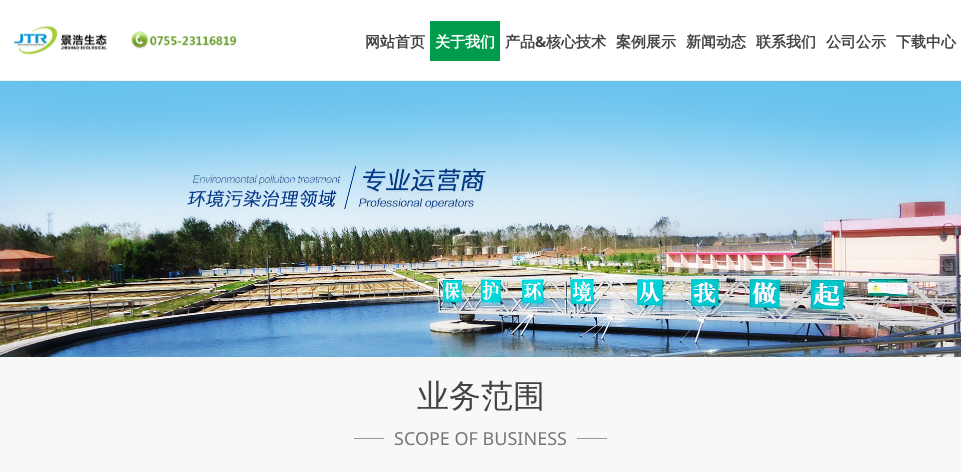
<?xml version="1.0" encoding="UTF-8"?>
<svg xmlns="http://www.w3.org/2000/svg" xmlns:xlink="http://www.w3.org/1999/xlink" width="961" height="472">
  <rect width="100%" height="100%" fill="#f8f8f8" />
  <rect width="961" height="80" fill="#ffffff" />
  <rect y="80" width="961" height="1" fill="#f1f1f1" />
  <image x="13" y="25" width="224" height="30" xlink:href="image1.png" />
  <rect x="430" y="21" width="70" height="40" fill="#009b4d" />
  <image x="0" y="81" width="961" height="276" xlink:href="image2.png" />
  <rect x="354" y="438" width="30" height="1" fill="#999999" />
  <rect x="577" y="438" width="30" height="1" fill="#999999" />
  <text x="365" y="47" style="font-family: WenQuanYi Zen Hei; font-size: 15px; font-weight: bold; fill: #444444">网站首页</text>
  <text x="435" y="47" style="font-family: WenQuanYi Zen Hei; font-size: 15px; font-weight: bold; fill: #ffffff">关于我们</text>
  <text x="505" y="47" style="font-family: WenQuanYi Zen Hei; font-size: 15px; font-weight: bold; fill: #444444">产品</text>
  <text x="535" y="47" style="font-family: Noto Sans; font-size: 15px; font-weight: bold; fill: #444444">&amp;</text>
  <text x="546" y="47" style="font-family: WenQuanYi Zen Hei; font-size: 15px; font-weight: bold; fill: #444444">核心技术</text>
  <text x="616" y="47" style="font-family: WenQuanYi Zen Hei; font-size: 15px; font-weight: bold; fill: #444444">案例展示</text>
  <text x="686" y="47" style="font-family: WenQuanYi Zen Hei; font-size: 15px; font-weight: bold; fill: #444444">新闻动态</text>
  <text x="756" y="47" style="font-family: WenQuanYi Zen Hei; font-size: 15px; font-weight: bold; fill: #444444">联系我们</text>
  <text x="826" y="47" style="font-family: WenQuanYi Zen Hei; font-size: 15px; font-weight: bold; fill: #444444">公司公示</text>
  <text x="896" y="47" style="font-family: WenQuanYi Zen Hei; font-size: 15px; font-weight: bold; fill: #444444">下载中心</text>
  <text x="417" y="407" style="font-family: WenQuanYi Zen Hei; font-size: 32px; font-weight: 500; fill: #444444">业务范围</text>
  <text x="394" y="445" style="font-family: Noto Sans; font-size: 18px; fill: #777777">SCOPE OF BUSINESS</text>
</svg>
